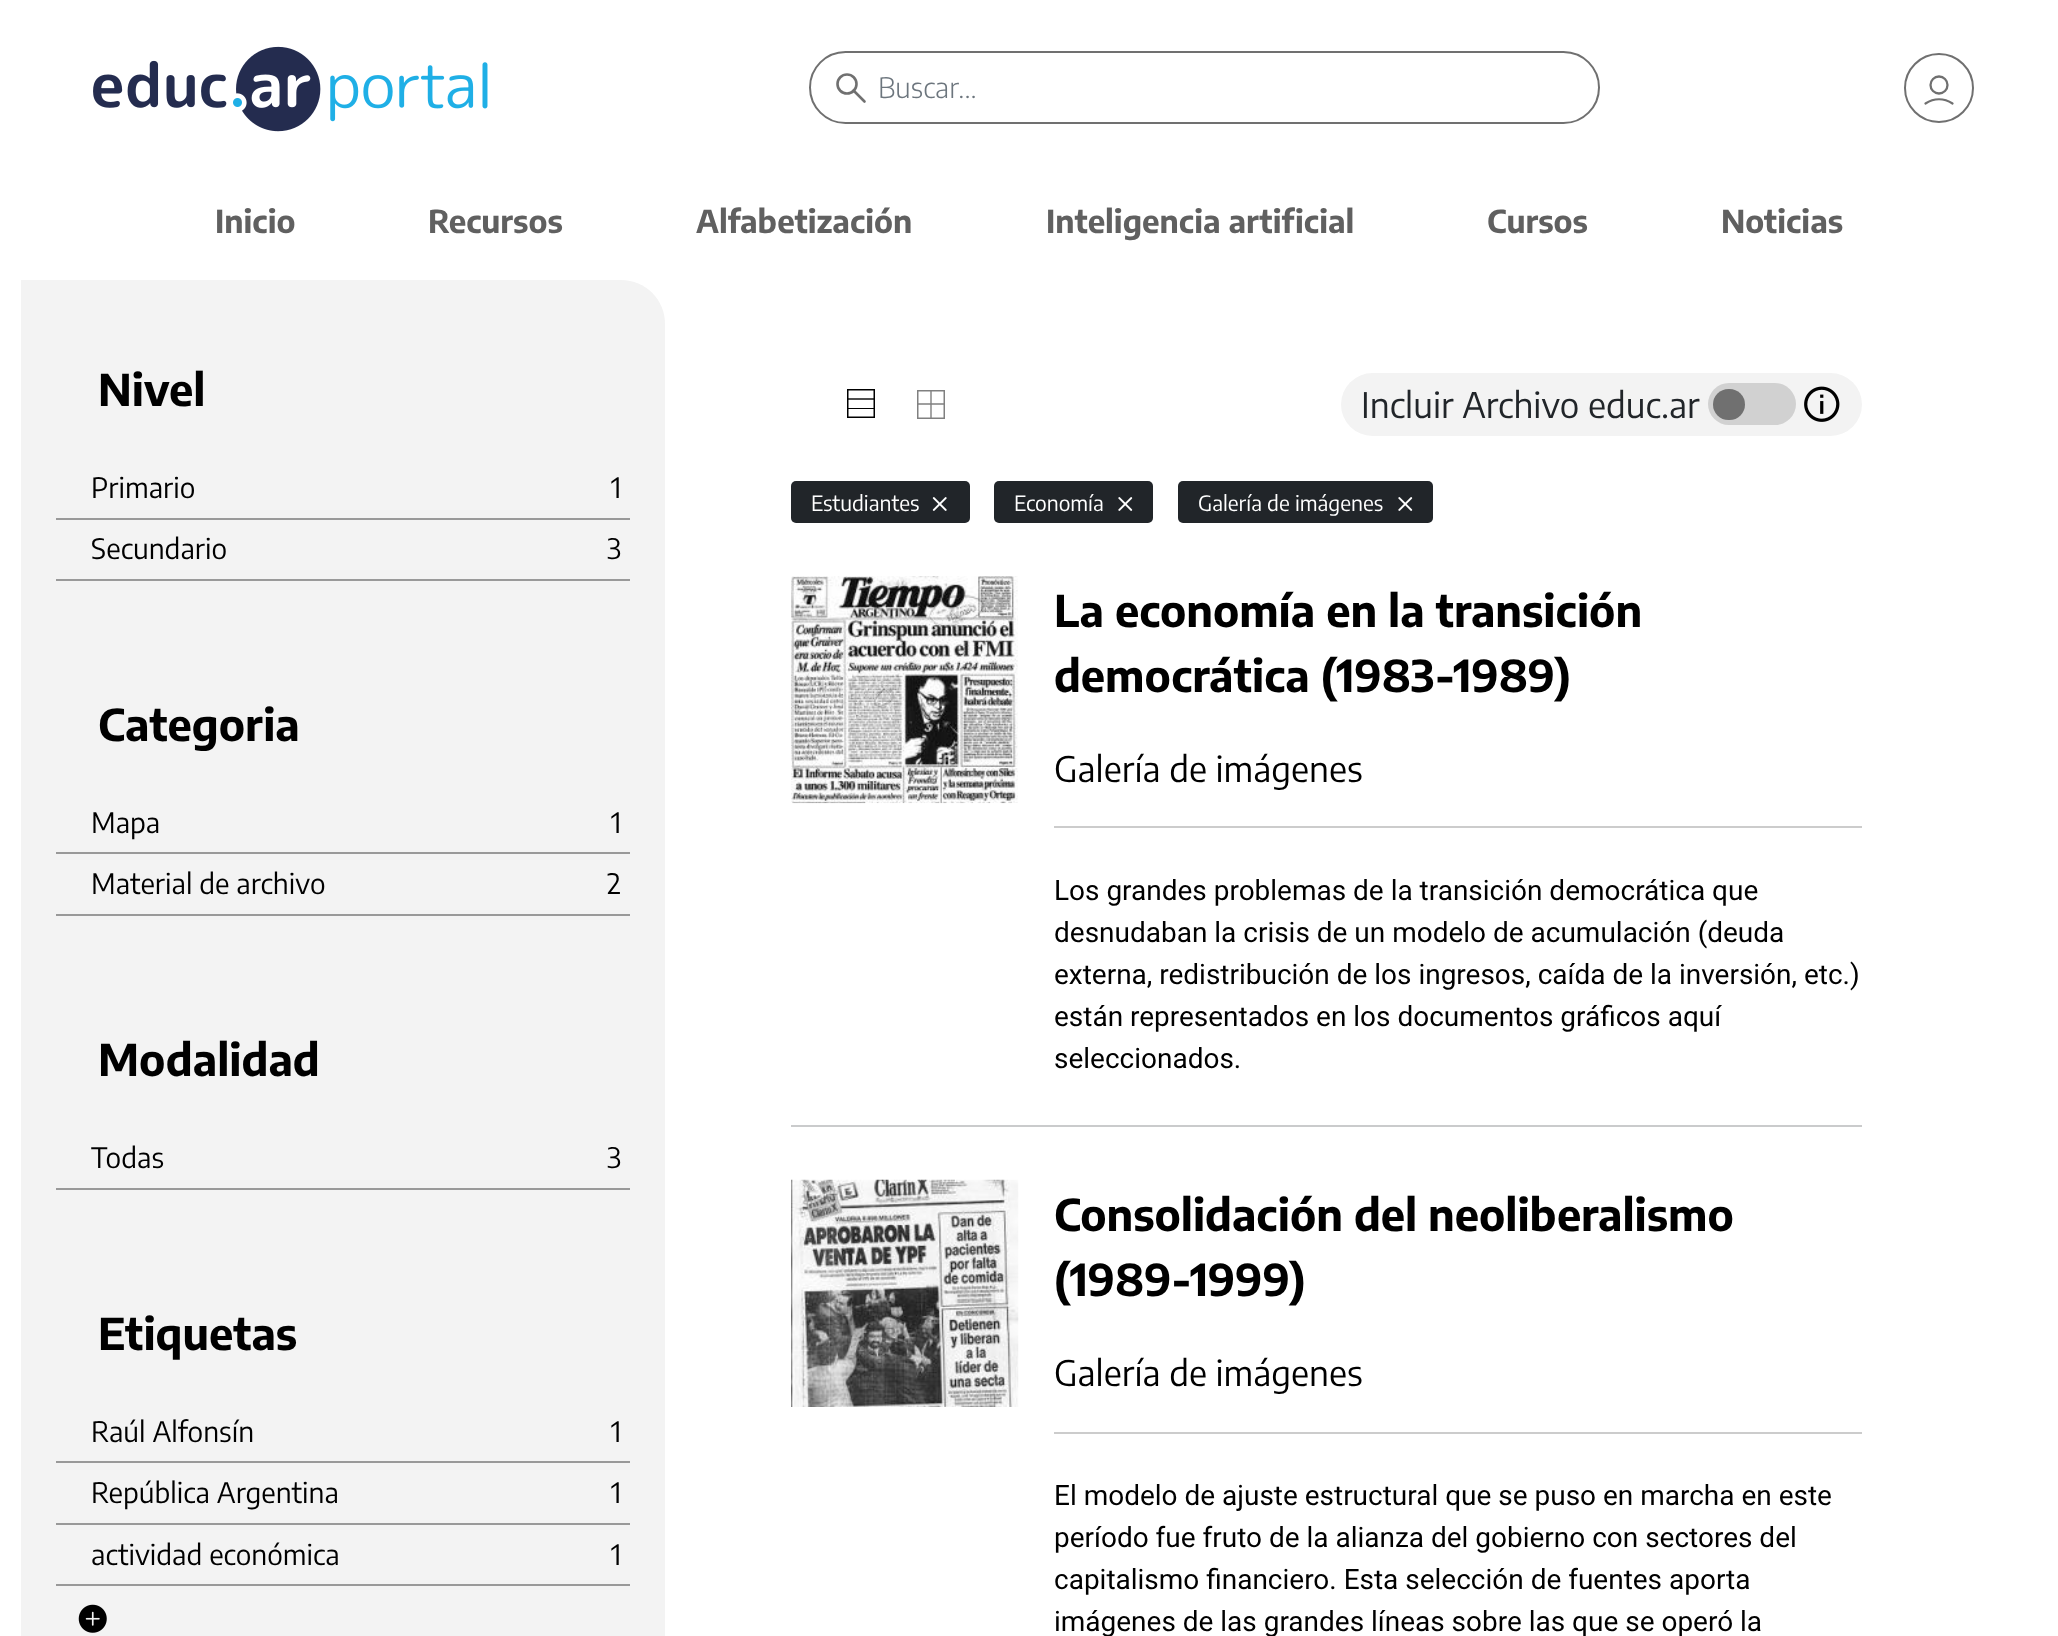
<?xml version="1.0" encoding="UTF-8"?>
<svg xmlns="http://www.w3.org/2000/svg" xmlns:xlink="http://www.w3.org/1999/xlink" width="2058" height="1636">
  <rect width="100%" height="100%" fill="#ffffff" />
  <image x="93" y="46" width="395" height="86" xlink:href="image1.png" />
  <rect x="810" y="52" width="789" height="71" rx="35.5" fill="none" stroke="#707070" stroke-width="2" />
  <circle cx="847" cy="84" r="9.5" fill="none" stroke="#707070" stroke-width="2.6" />
  <path d="M 864.5 101.5 l -11 -11" fill="none" stroke="#707070" stroke-width="2.6" stroke-linecap="round" stroke-linejoin="round" />
  <circle cx="1939" cy="88" r="34" fill="none" stroke="#707070" stroke-width="2" />
  <circle cx="1939" cy="85" r="8.5" fill="none" stroke="#707070" stroke-width="2.3" />
  <path d="M 1925.5 103.5 c 8.5 -5.5 18.5 -5.5 27 0" fill="none" stroke="#707070" stroke-width="2.3" stroke-linecap="round" stroke-linejoin="round" />
  <path d="M 21 280 h 600 c 24.5 0 44 19.5 44 44 v 1312 c 0 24.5 -19.5 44 -44 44 h -600 z" fill="#f3f3f3" />
  <rect x="56" y="518" width="574" height="2" fill="#999999" />
  <rect x="56" y="579" width="574" height="2" fill="#999999" />
  <rect x="56" y="852" width="574" height="2" fill="#999999" />
  <rect x="56" y="914" width="574" height="2" fill="#999999" />
  <rect x="56" y="1188" width="574" height="2" fill="#999999" />
  <rect x="56" y="1461" width="574" height="2" fill="#999999" />
  <rect x="56" y="1523" width="574" height="2" fill="#999999" />
  <rect x="56" y="1584" width="574" height="2" fill="#999999" />
  <image x="78" y="1604" width="29" height="29" xlink:href="image2.png" />
  <rect x="847.75" y="389.75" width="26.5" height="27.5" fill="none" stroke="#000000" stroke-width="1.5" />
  <path d="M 847.5 399 h 27" fill="none" stroke="#000000" stroke-width="1.4" />
  <rect x="848" y="408" width="27" height="1" fill="#000000" />
  <rect x="917.75" y="390.75" width="26.5" height="27.5" fill="none" stroke="#808080" stroke-width="1.5" />
  <path d="M 917.5 404 h 27 m -13.5 14 v -27.5" fill="none" stroke="#808080" stroke-width="1.4" />
  <rect x="1341" y="373" width="521" height="63" rx="31.5" fill="#f3f3f3" />
  <rect x="1708" y="383" width="88" height="42" rx="21" fill="#d1d1d1" />
  <rect x="1713" y="389" width="32" height="31" rx="15.5" fill="#707070" />
  <image x="1804" y="386" width="36" height="36" xlink:href="image3.png" />
  <rect x="791" y="481" width="179" height="42" rx="5" fill="#212529" />
  <image x="932" y="497" width="15" height="14" xlink:href="image4.png" />
  <rect x="994" y="481" width="159" height="42" rx="5" fill="#212529" />
  <image x="1118" y="497" width="15" height="14" xlink:href="image5.png" />
  <rect x="1178" y="481" width="255" height="42" rx="5" fill="#212529" />
  <image x="1398" y="497" width="15" height="14" xlink:href="image5.png" />
  <rect x="791" y="1125" width="1071" height="2" fill="#cacbcc" />
  <image x="791" y="576" width="227" height="228" xlink:href="image6.png" />
  <rect x="1054" y="826" width="808" height="2" fill="#cccccc" />
  <image x="791" y="1179" width="228" height="228" xlink:href="image7.png" />
  <rect x="1054" y="1432" width="808" height="2" fill="#cccccc" />
  <text x="878" y="98" style="font-family: Encode Sans Condensed; font-size: 28px; font-weight: 300; fill: #6c757d">Buscar...</text>
  <text x="215" y="233" style="font-family: Encode Sans Condensed; font-size: 31.5px; font-weight: bold; fill: #606060">Inicio</text>
  <text x="428" y="233" style="font-family: Encode Sans Condensed; font-size: 31.5px; font-weight: bold; fill: #606060">Recursos</text>
  <text x="696" y="233" style="font-family: Encode Sans Condensed; font-size: 31.5px; font-weight: bold; fill: #606060">Alfabetización</text>
  <text x="1046" y="233" style="font-family: Encode Sans Condensed; font-size: 31.5px; font-weight: bold; fill: #606060">Inteligencia artificial</text>
  <text x="1487" y="233" style="font-family: Encode Sans Condensed; font-size: 31.5px; font-weight: bold; fill: #606060">Cursos</text>
  <text x="1721" y="233" style="font-family: Encode Sans Condensed; font-size: 31.5px; font-weight: bold; fill: #606060">Noticias</text>
  <text x="98" y="406" style="font-family: Encode Sans Condensed; font-size: 43.75px; font-weight: bold; fill: #000000">Nivel</text>
  <text x="91" y="498" style="font-family: Encode Sans Condensed; font-size: 28px; fill: #000000">Primario</text>
  <text x="611" y="498" style="font-family: Encode Sans Condensed; font-size: 28px; fill: #000000">1</text>
  <text x="91" y="559" style="font-family: Encode Sans Condensed; font-size: 28px; fill: #000000">Secundario</text>
  <text x="607" y="559" style="font-family: Encode Sans Condensed; font-size: 28px; fill: #000000">3</text>
  <text x="98" y="741" style="font-family: Encode Sans Condensed; font-size: 43.75px; font-weight: bold; fill: #000000">Categoria</text>
  <text x="91" y="833" style="font-family: Encode Sans Condensed; font-size: 28px; fill: #000000">Mapa</text>
  <text x="611" y="833" style="font-family: Encode Sans Condensed; font-size: 28px; fill: #000000">1</text>
  <text x="91" y="894" style="font-family: Encode Sans Condensed; font-size: 28px; fill: #000000">Material de archivo</text>
  <text x="607" y="894" style="font-family: Encode Sans Condensed; font-size: 28px; fill: #000000">2</text>
  <text x="98" y="1076" style="font-family: Encode Sans Condensed; font-size: 43.75px; font-weight: bold; fill: #000000">Modalidad</text>
  <text x="91" y="1168" style="font-family: Encode Sans Condensed; font-size: 28px; fill: #000000">Todas</text>
  <text x="607" y="1168" style="font-family: Encode Sans Condensed; font-size: 28px; fill: #000000">3</text>
  <text x="98" y="1350" style="font-family: Encode Sans Condensed; font-size: 43.75px; font-weight: bold; fill: #000000">Etiquetas</text>
  <text x="91" y="1442" style="font-family: Encode Sans Condensed; font-size: 28px; fill: #000000">Raúl Alfonsín</text>
  <text x="611" y="1442" style="font-family: Encode Sans Condensed; font-size: 28px; fill: #000000">1</text>
  <text x="91" y="1503" style="font-family: Encode Sans Condensed; font-size: 28px; fill: #000000">República Argentina</text>
  <text x="611" y="1503" style="font-family: Encode Sans Condensed; font-size: 28px; fill: #000000">1</text>
  <text x="91" y="1565" style="font-family: Encode Sans Condensed; font-size: 28px; fill: #000000">actividad económica</text>
  <text x="611" y="1565" style="font-family: Encode Sans Condensed; font-size: 28px; fill: #000000">1</text>
  <text x="1361" y="418" style="font-family: Encode Sans Condensed; font-size: 35px; fill: #212529">Incluir Archivo educ.ar</text>
  <text x="811" y="511" style="font-family: Encode Sans Condensed; font-size: 21px; fill: #ffffff">Estudiantes</text>
  <text x="1014" y="511" style="font-family: Encode Sans Condensed; font-size: 21px; fill: #ffffff">Economía</text>
  <text x="1198" y="511" style="font-family: Encode Sans Condensed; font-size: 21px; fill: #ffffff">Galería de imágenes</text>
  <text x="1054" y="627" style="font-family: Encode Sans Condensed; font-size: 43.7px; font-weight: bold; fill: #000000">La economía en la transición</text>
  <text x="1054" y="692" style="font-family: Encode Sans Condensed; font-size: 43.7px; font-weight: bold; fill: #000000">democrática (1983-1989)</text>
  <text x="1054" y="782" style="font-family: Encode Sans Condensed; font-size: 35px; fill: #000000">Galería de imágenes</text>
  <text x="1054" y="900" style="font-family: Roboto; font-size: 28px; fill: #000000">Los grandes problemas de la transición democrática que</text>
  <text x="1054" y="942" style="font-family: Roboto; font-size: 28px; fill: #000000">desnudaban la crisis de un modelo de acumulación (deuda</text>
  <text x="1054" y="984" style="font-family: Roboto; font-size: 28px; fill: #000000">externa, redistribución de los ingresos, caída de la inversión, etc.)</text>
  <text x="1054" y="1026" style="font-family: Roboto; font-size: 28px; fill: #000000">están representados en los documentos gráficos aquí</text>
  <text x="1054" y="1068" style="font-family: Roboto; font-size: 28px; fill: #000000">seleccionados.</text>
  <text x="1054" y="1231" style="font-family: Encode Sans Condensed; font-size: 43.7px; font-weight: bold; fill: #000000">Consolidación del neoliberalismo</text>
  <text x="1054" y="1296" style="font-family: Encode Sans Condensed; font-size: 43.7px; font-weight: bold; fill: #000000">(1989-1999)</text>
  <text x="1054" y="1386" style="font-family: Encode Sans Condensed; font-size: 35px; fill: #000000">Galería de imágenes</text>
  <text x="1054" y="1505" style="font-family: Roboto; font-size: 28px; fill: #000000">El modelo de ajuste estructural que se puso en marcha en este</text>
  <text x="1054" y="1547" style="font-family: Roboto; font-size: 28px; fill: #000000">período fue fruto de la alianza del gobierno con sectores del</text>
  <text x="1054" y="1589" style="font-family: Roboto; font-size: 28px; fill: #000000">capitalismo financiero. Esta selección de fuentes aporta</text>
  <text x="1054" y="1631" style="font-family: Roboto; font-size: 28px; fill: #000000">imágenes de las grandes líneas sobre las que se operó la</text>
</svg>
